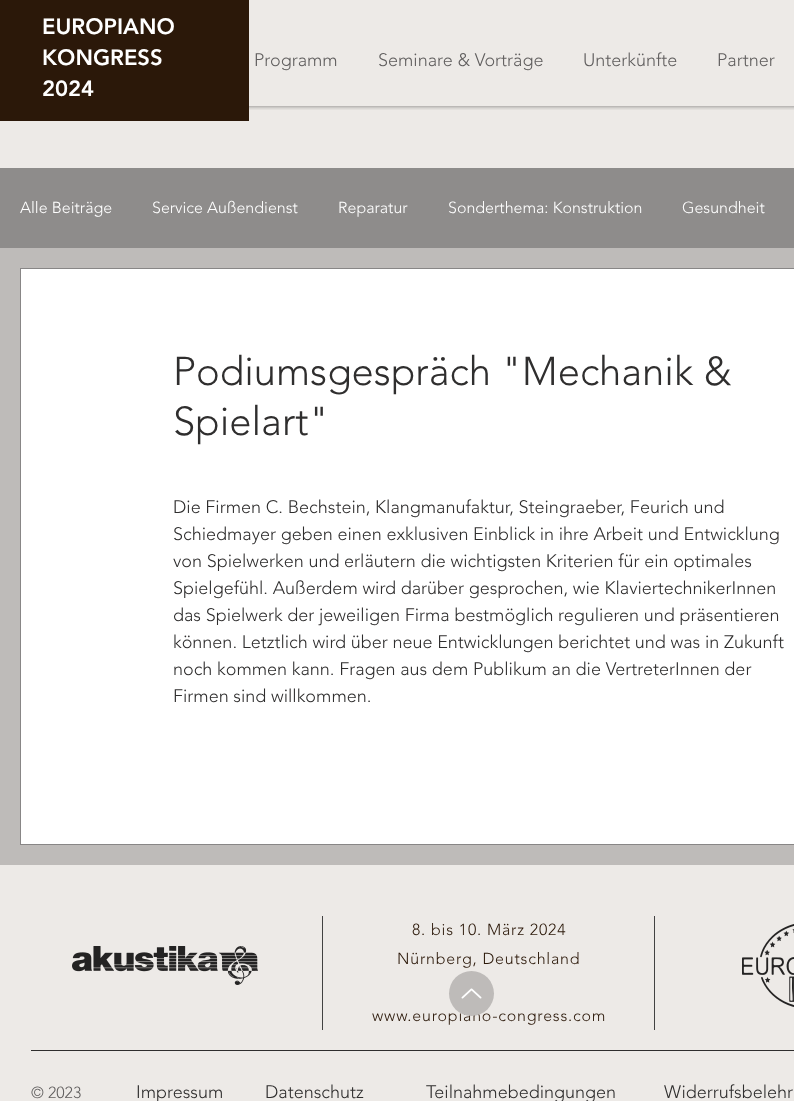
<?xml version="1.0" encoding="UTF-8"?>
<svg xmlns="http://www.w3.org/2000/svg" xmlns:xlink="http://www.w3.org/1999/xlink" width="794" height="1101">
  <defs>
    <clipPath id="clip1"><rect x="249" y="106" width="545" height="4" /></clipPath>
  </defs>
  <rect width="100%" height="100%" fill="#edeae7" />
  <g clip-path="url(#clip1)">
    <rect width="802" height="106" fill="#000000" fill-opacity="0.5" filter="blur(2.5px)" />
  </g>
  <rect width="249" height="121" fill="#2b1809" />
  <rect y="248" width="794" height="617" fill="#bebbb9" />
  <rect y="168" width="794" height="80" fill="#8e8c8b" />
  <rect x="20.5" y="268.5" width="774" height="576" fill="#ffffff" stroke="#888686" />
  <image x="72" y="946" width="186" height="39" xlink:href="image1.png" />
  <rect x="322" y="916" width="1" height="114" fill="#424242" />
  <rect x="654" y="916" width="1" height="114" fill="#424242" />
  <image x="742" y="924" width="52" height="83" xlink:href="image2.png" />
  <rect x="31" y="1050" width="763" height="1" fill="#2f2e2e" />
  <text x="42" y="34" style="font-family: 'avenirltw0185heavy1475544'; font-size: 22px; font-weight: 900; fill: #ffffff">EUROPIANO</text>
  <text x="42" y="65" style="font-family: 'avenirltw0185heavy1475544'; font-size: 22px; font-weight: 900; fill: #ffffff">KONGRESS</text>
  <text x="42" y="96" style="font-family: 'avenirltw0185heavy1475544'; font-size: 22px; font-weight: 900; fill: #ffffff">2024</text>
  <text x="254" y="66" style="font-family: 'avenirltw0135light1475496'; font-size: 18px; font-weight: 300; fill: #605e5e">Programm</text>
  <text x="378" y="66" style="font-family: 'avenirltw0135light1475496'; font-size: 18px; font-weight: 300; fill: #605e5e">Seminare &amp; Vorträge</text>
  <text x="583" y="66" style="font-family: 'avenirltw0135light1475496'; font-size: 18px; font-weight: 300; fill: #605e5e">Unterkünfte</text>
  <text x="717" y="66" style="font-family: 'avenirltw0135light1475496'; font-size: 18px; font-weight: 300; fill: #605e5e">Partner</text>
  <text x="20" y="213" style="font-family: 'avenirltw0135light1475496'; font-size: 16px; font-weight: 300; fill: #ffffff">Alle Beiträge</text>
  <text x="152" y="213" style="font-family: 'avenirltw0135light1475496'; font-size: 16px; font-weight: 300; fill: #ffffff">Service Außendienst</text>
  <text x="338" y="213" style="font-family: 'avenirltw0135light1475496'; font-size: 16px; font-weight: 300; fill: #ffffff">Reparatur</text>
  <text x="448" y="213" style="font-family: 'avenirltw0135light1475496'; font-size: 16px; font-weight: 300; fill: #ffffff">Sonderthema: Konstruktion</text>
  <text x="682" y="213" style="font-family: 'avenirltw0135light1475496'; font-size: 16px; font-weight: 300; fill: #ffffff">Gesundheit</text>
  <text x="173" y="385" style="font-family: 'avenirltw0135light1475496'; font-size: 40px; font-weight: 300; fill: #2f2e2e">Podiumsgespräch "Mechanik &amp;</text>
  <text x="173" y="435" style="font-family: 'avenirltw0135light1475496'; font-size: 40px; font-weight: 300; fill: #2f2e2e">Spielart"</text>
  <text x="173" y="513" style="font-family: 'avenirltw0135light1475496'; font-size: 18px; font-weight: 300; fill: #2f2e2e">Die Firmen C. Bechstein, Klangmanufaktur, Steingraeber, Feurich und</text>
  <text x="173" y="540" style="font-family: 'avenirltw0135light1475496'; font-size: 18px; font-weight: 300; fill: #2f2e2e">Schiedmayer geben einen exklusiven Einblick in ihre Arbeit und Entwicklung</text>
  <text x="173" y="567" style="font-family: 'avenirltw0135light1475496'; font-size: 18px; font-weight: 300; fill: #2f2e2e">von Spielwerken und erläutern die wichtigsten Kriterien für ein optimales</text>
  <text x="173" y="594" style="font-family: 'avenirltw0135light1475496'; font-size: 18px; font-weight: 300; fill: #2f2e2e">Spielgefühl. Außerdem wird darüber gesprochen, wie KlaviertechnikerInnen</text>
  <text x="173" y="621" style="font-family: 'avenirltw0135light1475496'; font-size: 18px; font-weight: 300; fill: #2f2e2e">das Spielwerk der jeweiligen Firma bestmöglich regulieren und präsentieren</text>
  <text x="173" y="648" style="font-family: 'avenirltw0135light1475496'; font-size: 18px; font-weight: 300; fill: #2f2e2e">können. Letztlich wird über neue Entwicklungen berichtet und was in Zukunft</text>
  <text x="173" y="675" style="font-family: 'avenirltw0135light1475496'; font-size: 18px; font-weight: 300; fill: #2f2e2e">noch kommen kann. Fragen aus dem Publikum an die VertreterInnen der</text>
  <text x="173" y="702" style="font-family: 'avenirltw0135light1475496'; font-size: 18px; font-weight: 300; fill: #2f2e2e">Firmen sind willkommen.</text>
  <text x="412" y="935" style="font-family: 'avenirltw0135light1475496'; font-size: 16px; font-weight: 300; letter-spacing: 0.8px; fill: #2b1809">8. bis 10. März 2024</text>
  <text x="397" y="964" style="font-family: 'avenirltw0135light1475496'; font-size: 16px; font-weight: 300; letter-spacing: 0.8px; fill: #2b1809">Nürnberg, Deutschland</text>
  <text x="372" y="1021" style="font-family: 'avenirltw0135light1475496'; font-size: 16px; font-weight: 300; letter-spacing: 0.8px; fill: #2b1809">www.europiano-congress.com</text>
  <text x="31" y="1098" style="font-family: 'avenirltw0135light1475496'; font-size: 16px; font-weight: 300; fill: #605e5e">© 2023</text>
  <text x="136" y="1098" style="font-family: 'avenirltw0135light1475496'; font-size: 18px; font-weight: 300; fill: #2f2e2e">Impressum</text>
  <text x="265" y="1098" style="font-family: 'avenirltw0135light1475496'; font-size: 18px; font-weight: 300; fill: #2f2e2e">Datenschutz</text>
  <text x="426" y="1098" style="font-family: 'avenirltw0135light1475496'; font-size: 18px; font-weight: 300; fill: #2f2e2e">Teilnahmebedingungen</text>
  <text x="664" y="1098" style="font-family: 'avenirltw0135light1475496'; font-size: 18px; font-weight: 300; fill: #2f2e2e">Widerrufsbelehr</text>
  <circle cx="471.5" cy="993.5" r="22.5" fill="#bebbb9" />
  <image x="461" y="988" width="21" height="11" xlink:href="image3.png" />
</svg>
